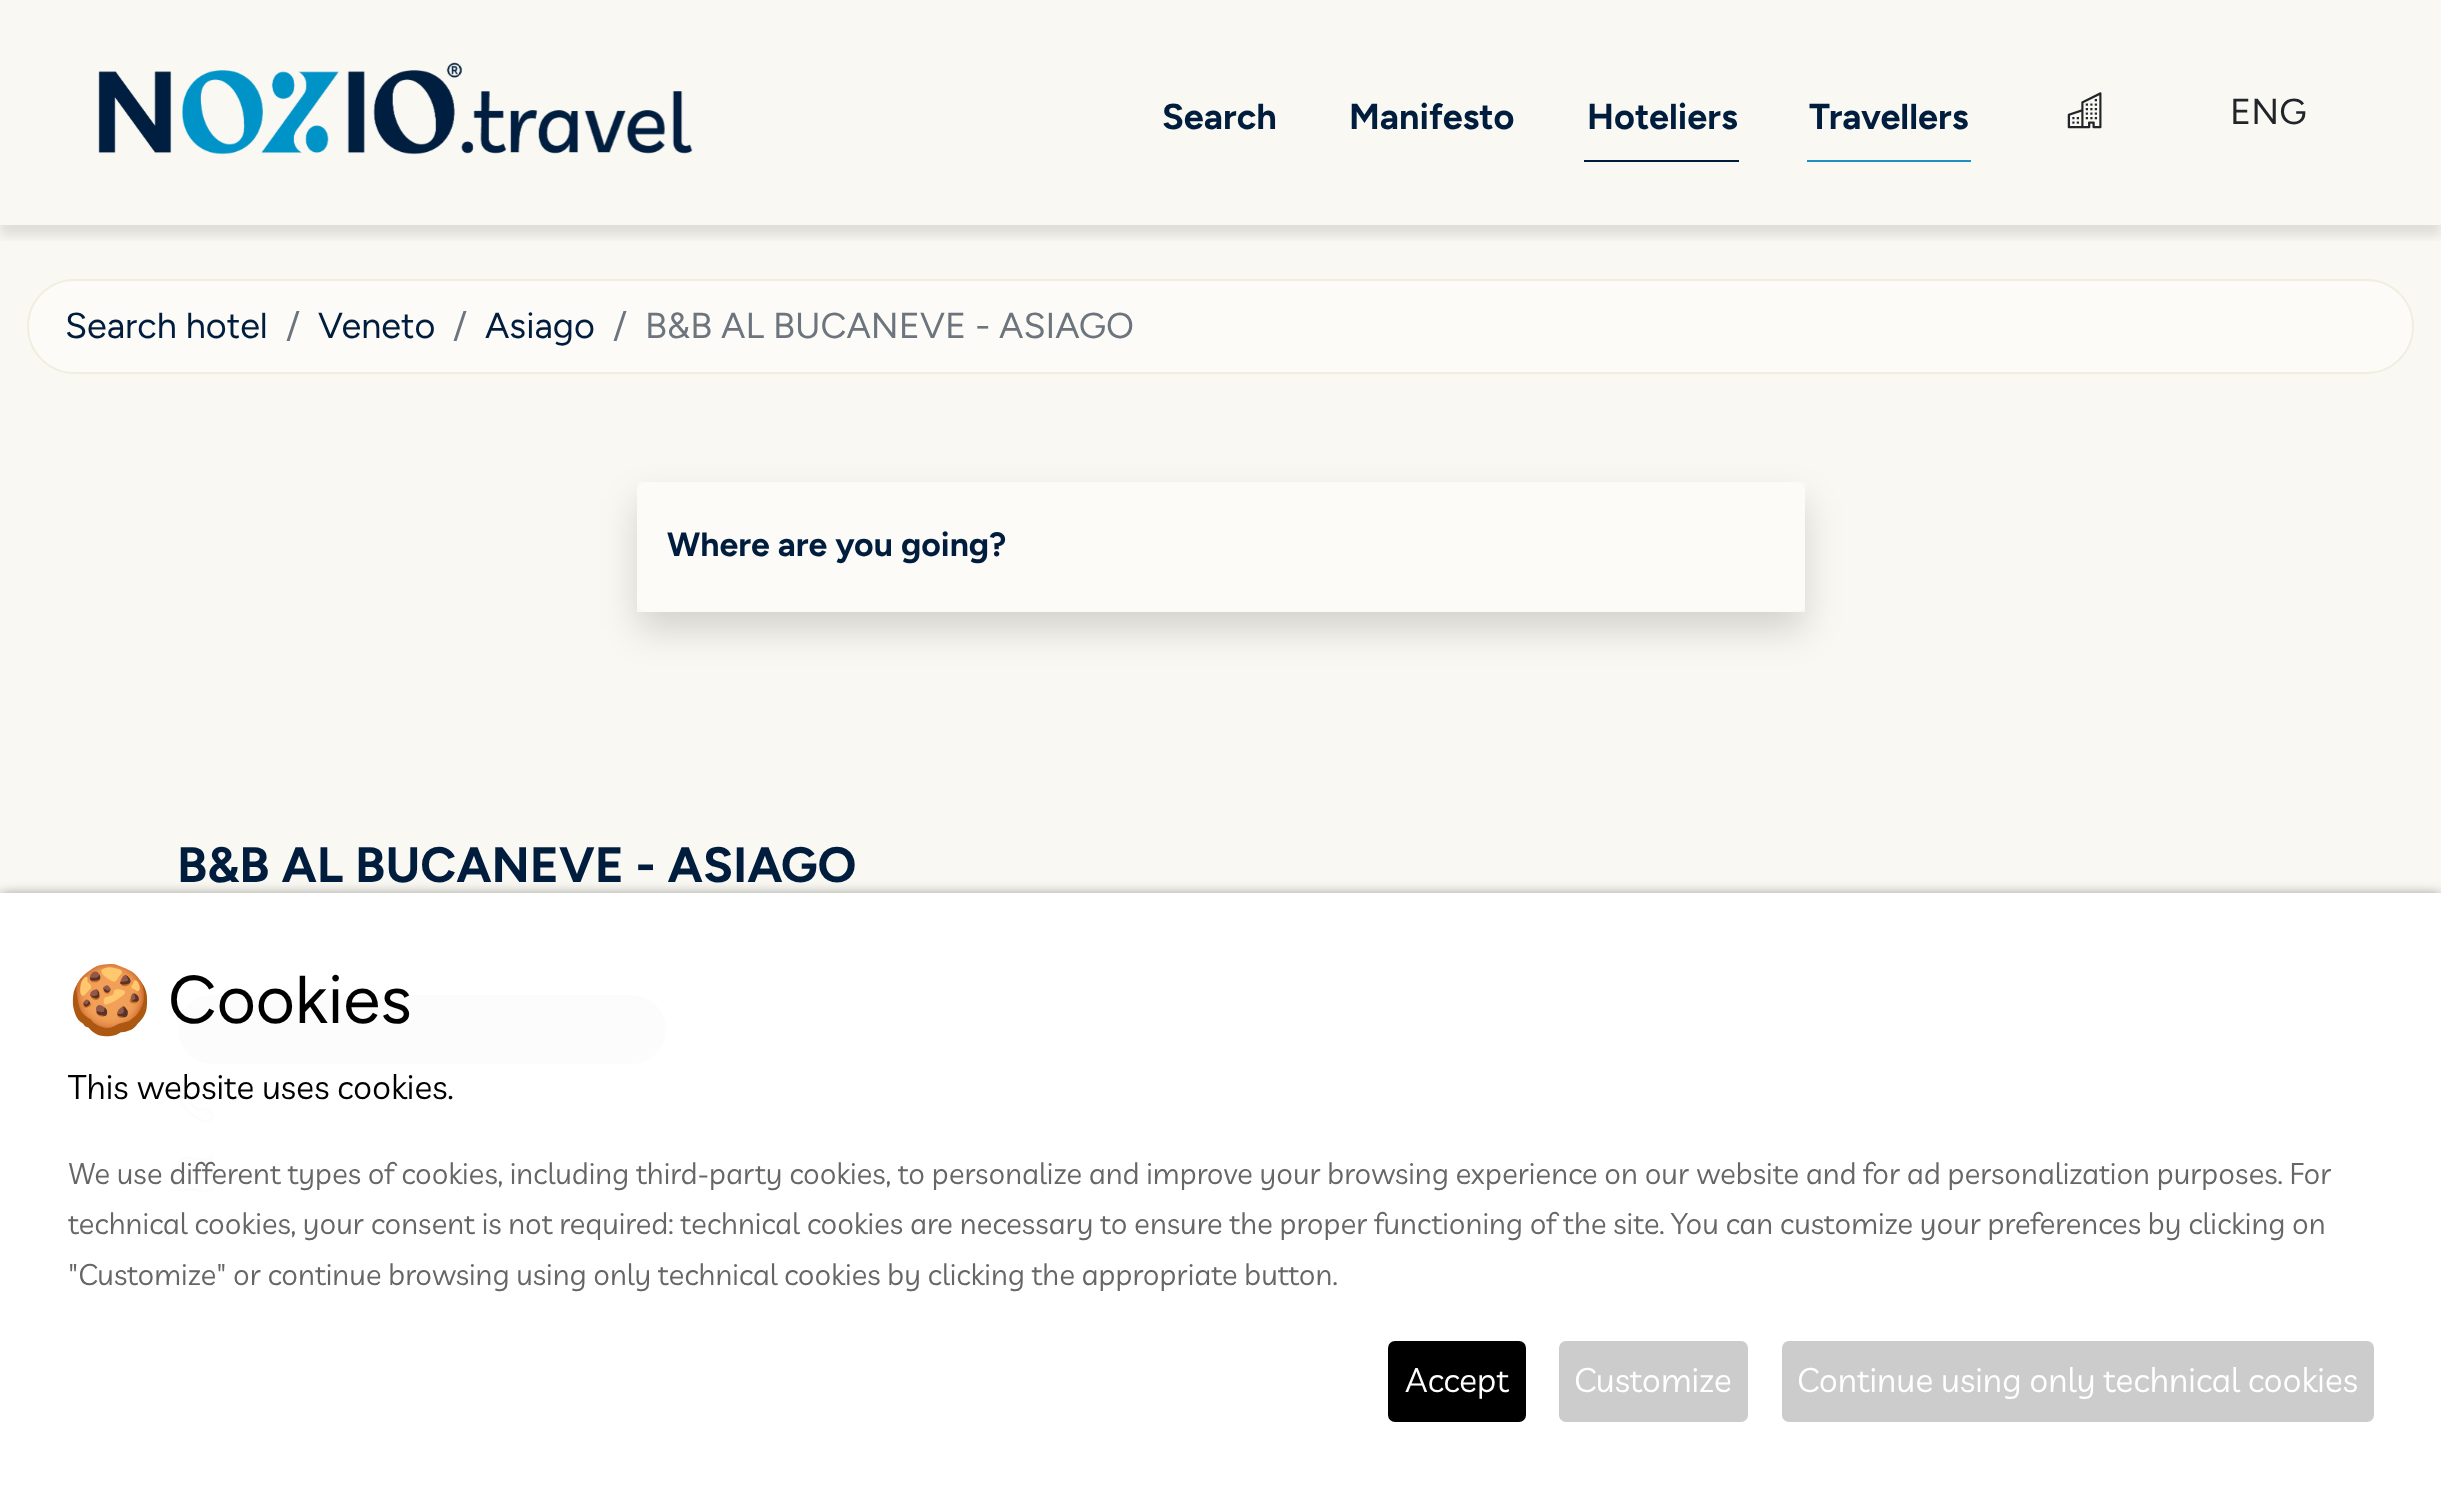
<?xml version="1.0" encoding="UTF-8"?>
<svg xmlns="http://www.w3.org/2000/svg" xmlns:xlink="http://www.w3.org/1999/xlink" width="2441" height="1489">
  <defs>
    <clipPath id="clip1"><rect x="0" y="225" width="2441" height="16" /></clipPath>
    <clipPath id="clip2"><path d="M 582 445 h 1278 v 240 h -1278 z m 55 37 h 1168 v 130 h -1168 z" clip-rule="evenodd" /></clipPath>
    <clipPath id="clip3"><path d="M 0 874 h 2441 v 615 h -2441 z m 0 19 h 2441 v 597 h -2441 z" clip-rule="evenodd" /></clipPath>
  </defs>
  <rect width="100%" height="100%" fill="#f9f8f2" />
  <g clip-path="url(#clip1)">
    <rect y="11" width="2441" height="225" fill="#000000" fill-opacity="0.1" filter="blur(5.5px)" />
  </g>
  <image x="98" y="62" width="595" height="93" xlink:href="image1.png" />
  <rect x="1584" y="160" width="155" height="2" fill="#001d3d" />
  <rect x="1807" y="160" width="164" height="2" fill="#1e91c4" />
  <image x="2067" y="92" width="35" height="37" xlink:href="image2.png" />
  <rect x="28" y="280" width="2385" height="93" rx="46.5" fill="#fcfbf7" stroke="#f0eedf" stroke-width="2" />
  <g clip-path="url(#clip2)">
    <rect x="637" y="500" width="1168" height="130" fill="#000000" fill-opacity="0.15" filter="blur(18px)" />
  </g>
  <rect x="637" y="482" width="1168" height="130" rx="9" fill="#fcfbf7" />
  <rect x="179" y="996" width="486" height="67" rx="33.5" fill="#001d3d" stroke="#001d3d" stroke-width="2" />
  <image x="177" y="1086" width="37" height="37" xlink:href="image3.png" />
  <image x="177" y="1156" width="37" height="37" xlink:href="image4.png" />
  <rect x="178" y="1240" width="1195" height="249" fill="#f8f8f8" />
  <g clip-path="url(#clip3)">
    <rect y="896" width="2441" height="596" fill="#000000" fill-opacity="0.55" filter="blur(7px)" />
  </g>
  <rect y="893" width="2441" height="596" fill="#ffffff" fill-opacity="0.99" />
  <rect x="1388" y="1341" width="138" height="81" rx="7" fill="#000000" />
  <rect x="1559" y="1341" width="189" height="81" rx="7" fill="#cccccc" />
  <rect x="1782" y="1341" width="592" height="81" rx="7" fill="#cccccc" />
  <text x="1162" y="129" style="font-family: Figtree; font-size: 36px; font-weight: bold; fill: #001d3d">Search</text>
  <text x="1349" y="129" style="font-family: Figtree; font-size: 36px; font-weight: bold; fill: #001d3d">Manifesto</text>
  <text x="1587" y="129" style="font-family: Figtree; font-size: 36px; font-weight: bold; fill: #001d3d">Hoteliers</text>
  <text x="1809" y="129" style="font-family: Figtree; font-size: 36px; font-weight: bold; fill: #001d3d">Travellers</text>
  <text x="2230" y="124" style="font-family: Figtree; font-size: 36px; fill: #212529">ENG</text>
  <text x="65" y="338" style="font-family: Figtree; font-size: 36px; fill: #001d3d">Search hotel</text>
  <text x="286" y="338" style="font-family: Figtree; font-size: 36px; fill: #6c757d">/</text>
  <text x="318" y="338" style="font-family: Figtree; font-size: 36px; fill: #001d3d">Veneto</text>
  <text x="453" y="338" style="font-family: Figtree; font-size: 36px; fill: #6c757d">/</text>
  <text x="485" y="338" style="font-family: Figtree; font-size: 36px; fill: #001d3d">Asiago</text>
  <text x="613" y="338" style="font-family: Figtree; font-size: 36px; fill: #6c757d">/</text>
  <text x="645" y="338" style="font-family: Figtree; font-size: 36px; fill: #6c757d">B&amp;B AL BUCANEVE - ASIAGO</text>
  <text x="667" y="556" style="font-family: Figtree; font-size: 33.75px; font-weight: bold; fill: #001d3d">Where are you going?</text>
  <text x="177" y="882" style="font-family: Figtree; font-size: 49.5px; font-weight: bold; fill: #001d3d">B&amp;B AL BUCANEVE - ASIAGO</text>
  <text x="68" y="1023" style="font-family: Noto Color Emoji; font-size: 67.5px; fill: #000000">🍪</text>
  <text x="168" y="1023" style="font-family: Figtree; font-size: 67.5px; fill: #000000">Cookies</text>
  <text x="68" y="1099" style="font-family: Livvic; font-size: 33.75px; fill: #000000">This website uses cookies.</text>
  <text x="68" y="1184" style="font-family: Livvic; font-size: 29.53px; fill: #666666">We use different types of cookies, including third-party cookies, to personalize and improve your browsing experience on our website and for ad personalization purposes. For</text>
  <text x="68" y="1234" style="font-family: Livvic; font-size: 29.53px; fill: #666666">technical cookies, your consent is not required: technical cookies are necessary to ensure the proper functioning of the site. You can customize your preferences by clicking on</text>
  <text x="68" y="1285" word-spacing="-0.1" style="font-family: Livvic; font-size: 29.53px; fill: #666666">"Customize" or continue browsing using only technical cookies by clicking the appropriate button.</text>
  <text x="1405" y="1392" style="font-family: Livvic; font-size: 33.75px; fill: #ffffff">Accept</text>
  <text x="1574" y="1392" style="font-family: Livvic; font-size: 33.75px; fill: #ffffff">Customize</text>
  <text x="1797" y="1392" style="font-family: Livvic; font-size: 33.75px; fill: #ffffff">Continue using only technical cookies</text>
</svg>
